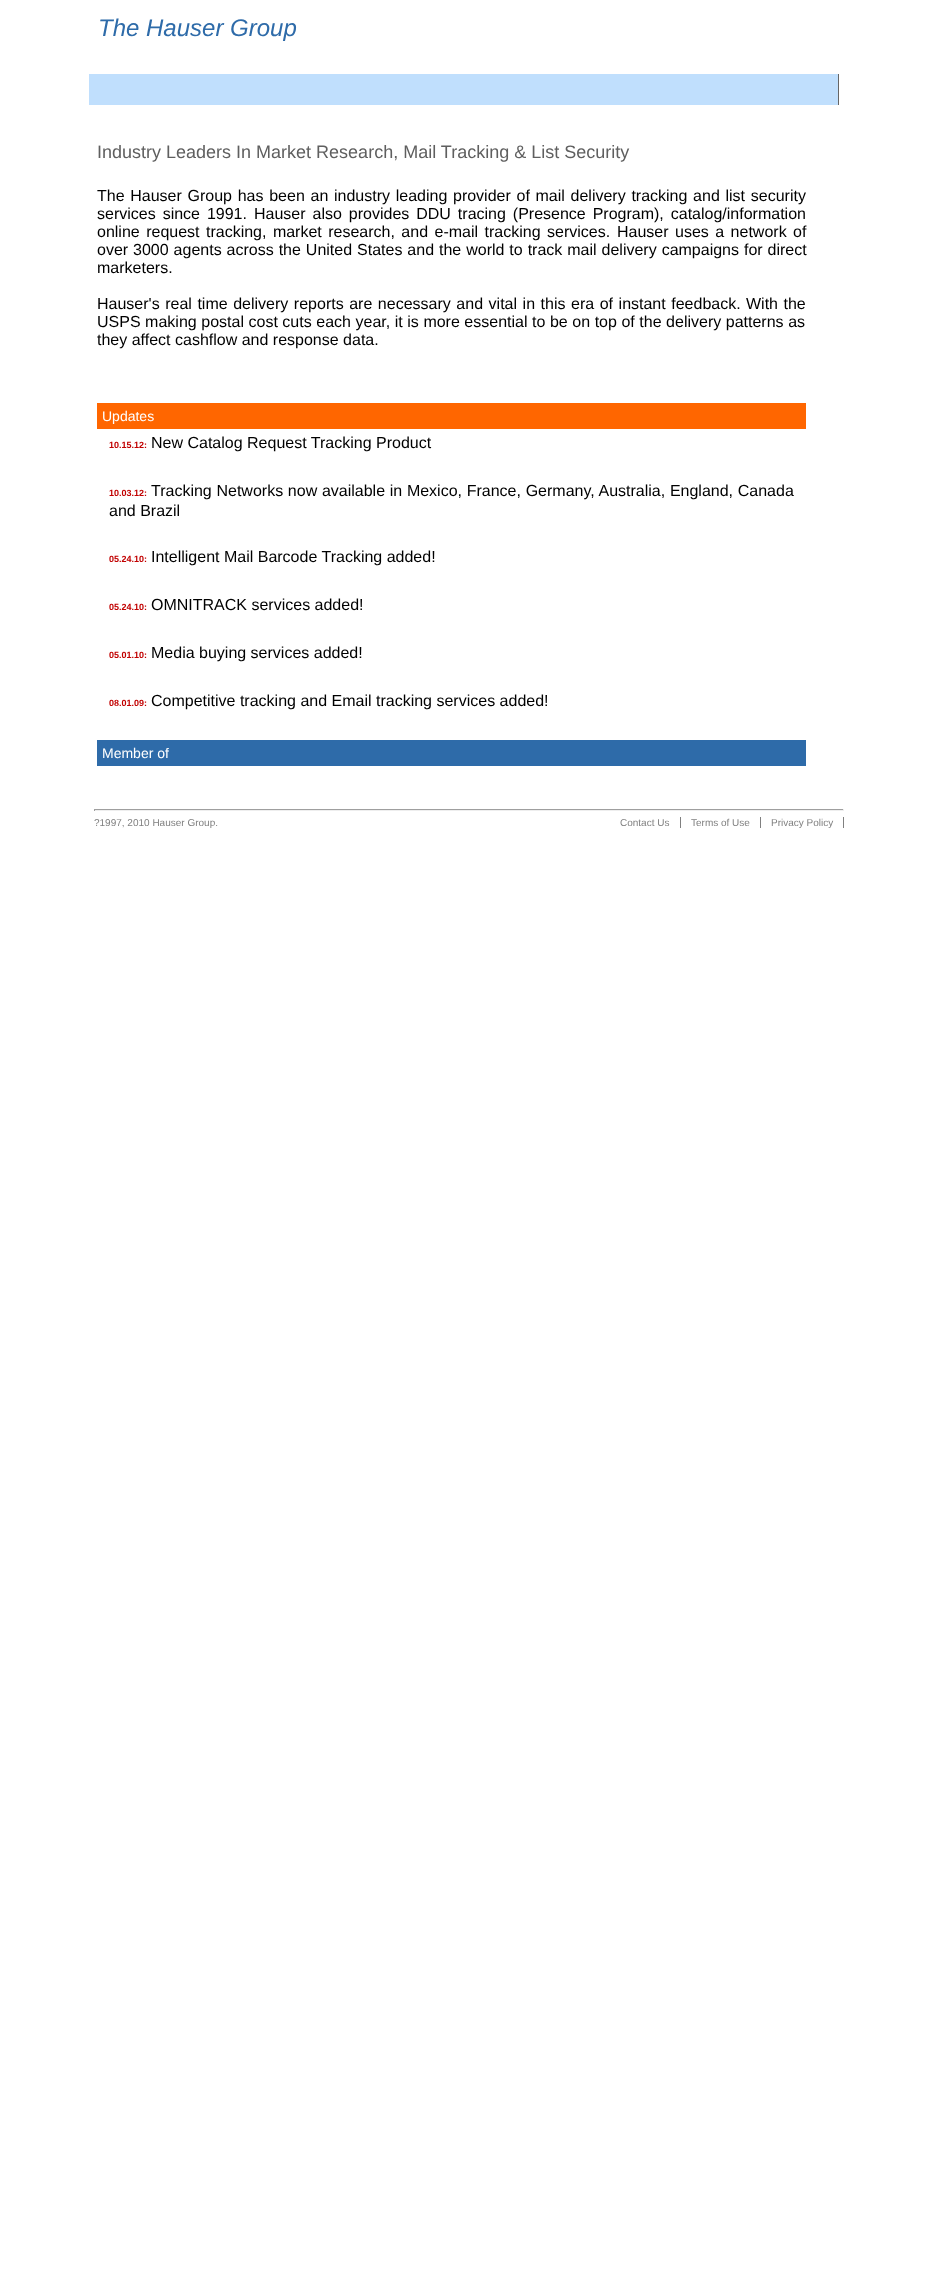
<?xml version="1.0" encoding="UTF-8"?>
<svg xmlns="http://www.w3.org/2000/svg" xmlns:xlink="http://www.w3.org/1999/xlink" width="928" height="2293">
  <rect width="100%" height="100%" fill="#ffffff" />
  <rect x="601" y="74" width="237" height="31" fill="#c0dffd" />
  <rect x="838" y="74" width="1" height="31" fill="#666666" />
  <rect x="89" y="74" width="512" height="31" fill="#c0dffd" />
  <rect x="97" y="403" width="709" height="26" fill="#ff6600" />
  <rect x="97" y="740" width="709" height="26" fill="#2e6ba9" />
  <rect x="94" y="809" width="750" height="1" fill="#9f9f9f" />
  <rect x="843" y="809" width="1" height="2" fill="#eeeeee" />
  <rect x="94" y="810" width="750" height="1" fill="#eeeeee" />
  <rect x="94" y="809" width="1" height="2" fill="#9f9f9f" />
  <rect x="680" y="817" width="1" height="11" fill="#808080" />
  <rect x="760" y="817" width="1" height="11" fill="#808080" />
  <rect x="843" y="817" width="1" height="11" fill="#808080" />
  <text x="98" y="36" style="font-family: Liberation Sans; font-size: 24px; font-style: italic; fill: #2e6ba9">The Hauser Group</text>
  <text x="97" y="158" style="font-family: Liberation Sans; font-size: 18px; fill: #5f5f5f">Industry Leaders In Market Research, Mail Tracking &amp; List Security</text>
  <text x="97" y="201" word-spacing="1.25" style="font-family: Liberation Sans; font-size: 16px; fill: #000000">The Hauser Group has been an industry leading provider of mail delivery tracking and list security</text>
  <text x="97" y="219" word-spacing="2.5" style="font-family: Liberation Sans; font-size: 16px; fill: #000000">services since 1991.</text>
  <text x="254" y="219" word-spacing="2.5" style="font-family: Liberation Sans; font-size: 16px; fill: #000000">Hauser also provides DDU tracing (Presence Program), catalog/information</text>
  <text x="97" y="237" word-spacing="2" style="font-family: Liberation Sans; font-size: 16px; fill: #000000">online request tracking, market research, and e-mail tracking services.</text>
  <text x="617" y="237" word-spacing="2" style="font-family: Liberation Sans; font-size: 16px; fill: #000000">Hauser uses a network of</text>
  <text x="97" y="255" word-spacing="0.5" style="font-family: Liberation Sans; font-size: 16px; fill: #000000">over 3000 agents across the United States and the world to track mail delivery campaigns for direct</text>
  <text x="97" y="273" style="font-family: Liberation Sans; font-size: 16px; fill: #000000">marketers.</text>
  <text x="97" y="309" word-spacing="1.1" style="font-family: Liberation Sans; font-size: 16px; fill: #000000">Hauser's real time delivery reports are necessary and vital in this era of instant feedback.</text>
  <text x="746" y="309" word-spacing="1" style="font-family: Liberation Sans; font-size: 16px; fill: #000000">With the</text>
  <text x="97" y="327" word-spacing="0.1" style="font-family: Liberation Sans; font-size: 16px; fill: #000000">USPS making postal cost cuts each year, it is more essential to be on top of the delivery patterns as</text>
  <text x="97" y="345" style="font-family: Liberation Sans; font-size: 16px; fill: #000000">they affect cashflow and response data.</text>
  <text x="102" y="421" style="font-family: Liberation Sans; font-size: 14px; fill: #ffffff">Updates</text>
  <text x="109" y="448" style="font-family: Liberation Sans; font-size: 9px; font-weight: bold; fill: #c10000">10.15.12:</text>
  <text x="151" y="448" style="font-family: Liberation Sans; font-size: 16px; fill: #000000">New Catalog Request Tracking Product</text>
  <text x="109" y="496" style="font-family: Liberation Sans; font-size: 9px; font-weight: bold; fill: #c10000">10.03.12:</text>
  <text x="151" y="496" word-spacing="0.25" style="font-family: Liberation Sans; font-size: 16px; fill: #000000">Tracking Networks now available in Mexico, France, Germany, Australia, England, Canada</text>
  <text x="109" y="516" style="font-family: Liberation Sans; font-size: 16px; fill: #000000">and Brazil</text>
  <text x="109" y="562" style="font-family: Liberation Sans; font-size: 9px; font-weight: bold; fill: #c10000">05.24.10:</text>
  <text x="151" y="562" style="font-family: Liberation Sans; font-size: 16px; fill: #000000">Intelligent Mail Barcode Tracking added!</text>
  <text x="109" y="610" style="font-family: Liberation Sans; font-size: 9px; font-weight: bold; fill: #c10000">05.24.10:</text>
  <text x="151" y="610" style="font-family: Liberation Sans; font-size: 16px; fill: #000000">OMNITRACK services added!</text>
  <text x="109" y="658" style="font-family: Liberation Sans; font-size: 9px; font-weight: bold; fill: #c10000">05.01.10:</text>
  <text x="151" y="658" style="font-family: Liberation Sans; font-size: 16px; fill: #000000">Media buying services added!</text>
  <text x="109" y="706" style="font-family: Liberation Sans; font-size: 9px; font-weight: bold; fill: #c10000">08.01.09:</text>
  <text x="151" y="706" style="font-family: Liberation Sans; font-size: 16px; fill: #000000">Competitive tracking and Email tracking services added!</text>
  <text x="102" y="758" style="font-family: Liberation Sans; font-size: 14px; fill: #ffffff">Member of</text>
  <text x="94" y="826" style="font-family: Liberation Sans; font-size: 10px; fill: #808080">?1997, 2010 Hauser Group.</text>
  <text x="620" y="826" style="font-family: Liberation Sans; font-size: 10px; fill: #808080">Contact Us</text>
  <text x="691" y="826" style="font-family: Liberation Sans; font-size: 10px; fill: #808080">Terms of Use</text>
  <text x="771" y="826" style="font-family: Liberation Sans; font-size: 10px; fill: #808080">Privacy Policy</text>
</svg>
